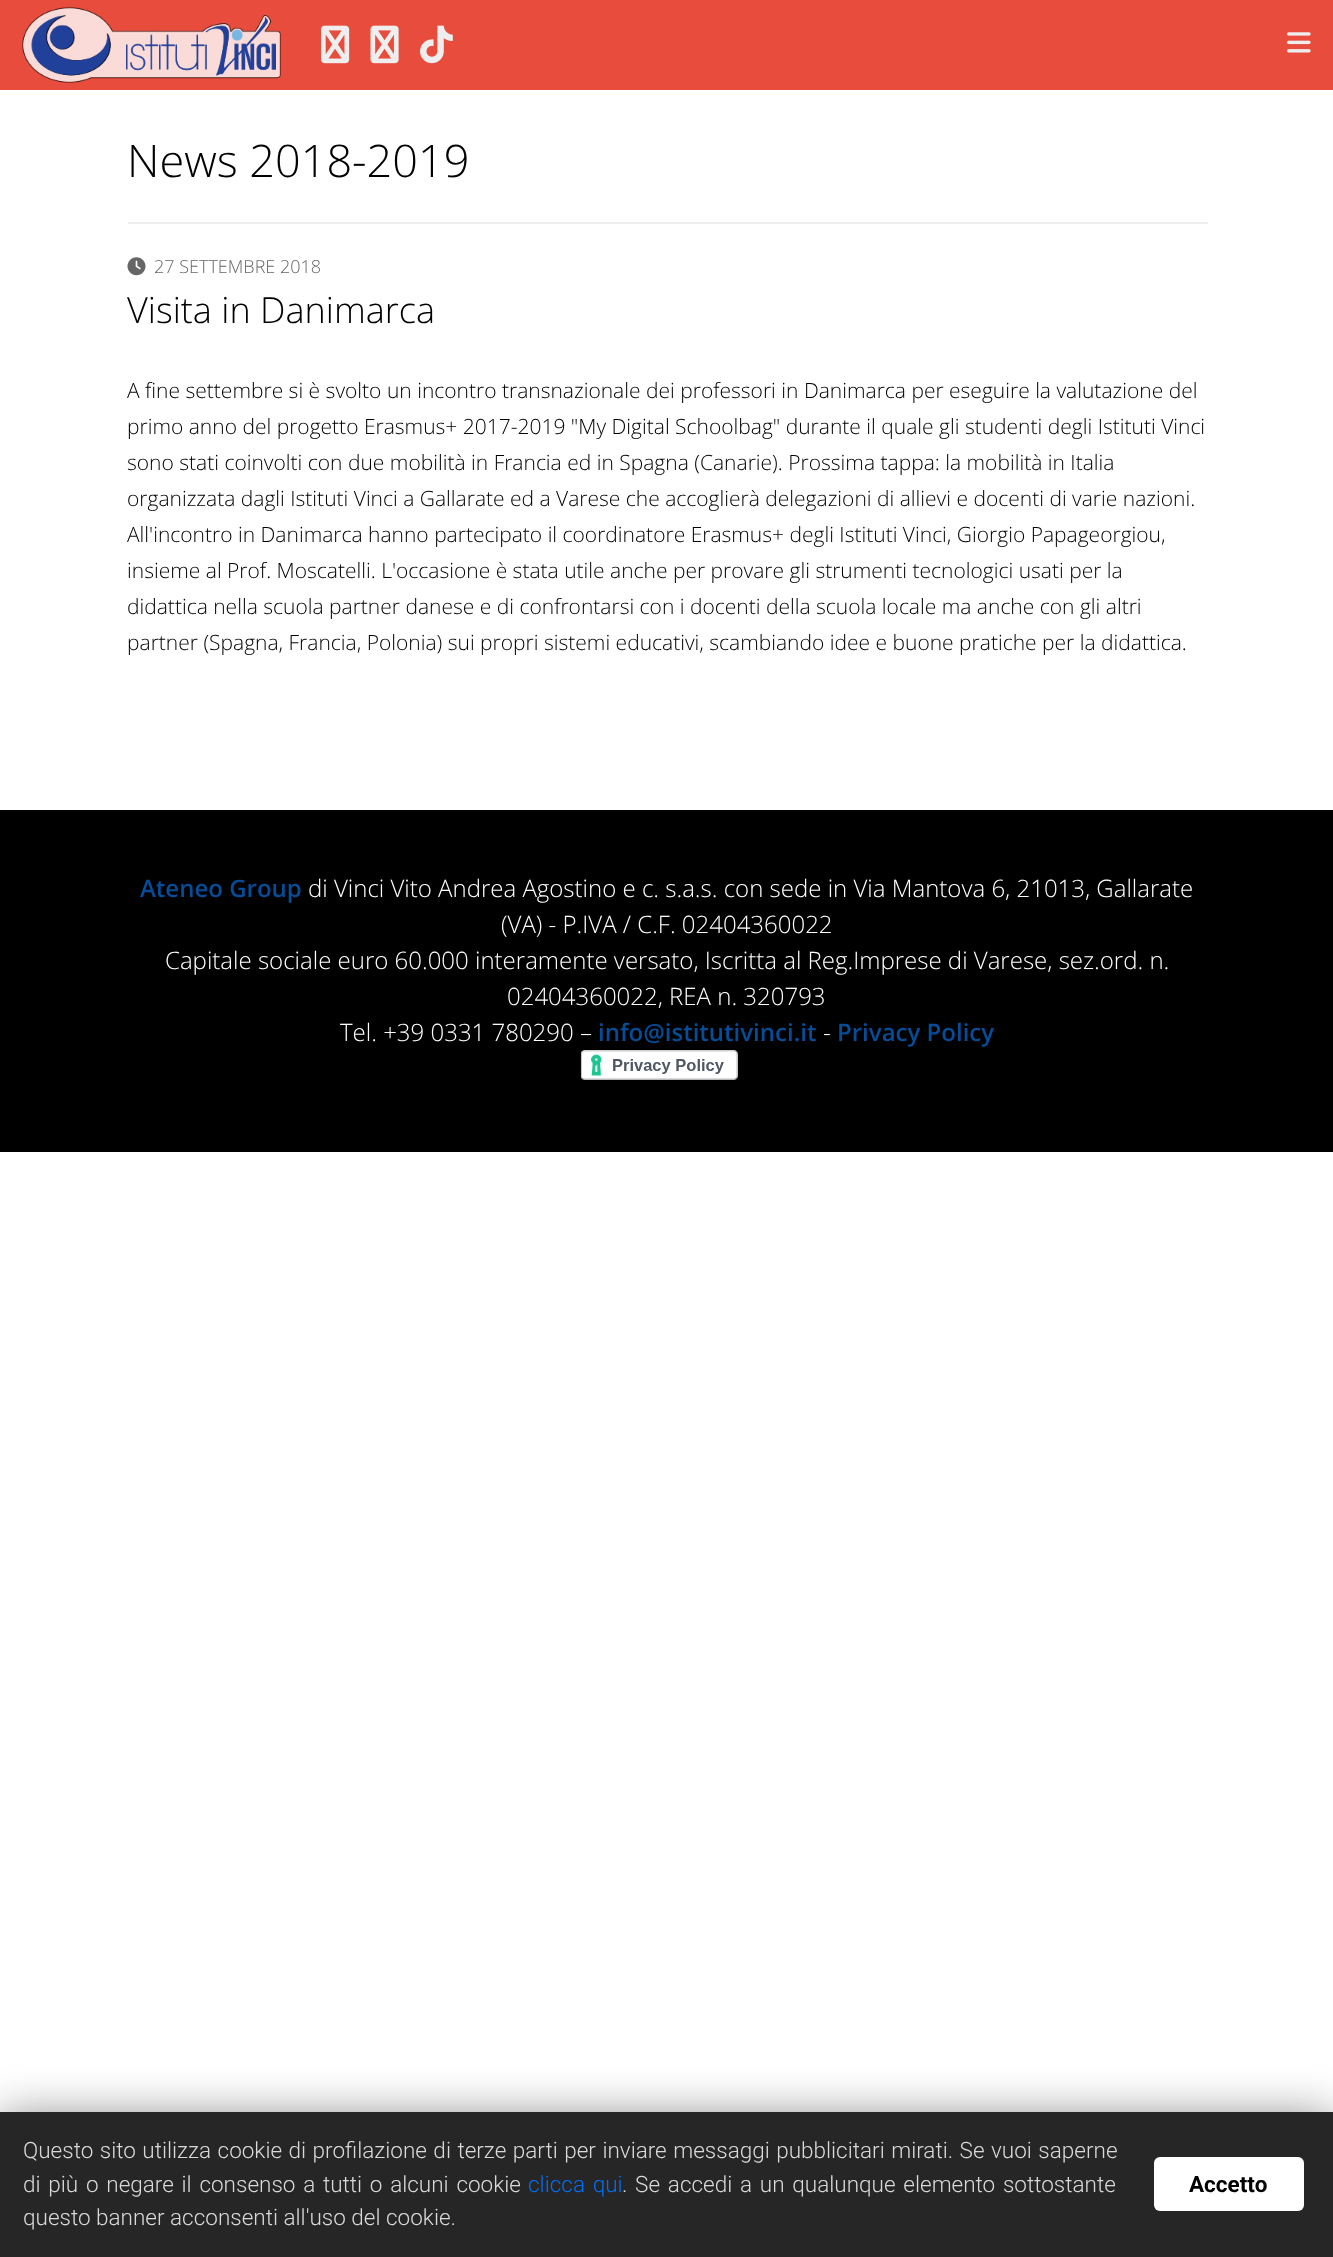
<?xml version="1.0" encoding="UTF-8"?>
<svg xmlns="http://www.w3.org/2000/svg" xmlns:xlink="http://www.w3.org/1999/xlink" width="1333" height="2257">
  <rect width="100%" height="100%" fill="#ffffff" />
  <rect width="1333" height="90" fill="#e74c3c" />
  <image x="22" y="7" width="259" height="76" xlink:href="image1.png" />
  <image x="321" y="25" width="29" height="39" xlink:href="image2.png" />
  <image x="370" y="25" width="29" height="39" xlink:href="image3.png" />
  <image x="420" y="25" width="33" height="39" xlink:href="image4.png" />
  <image x="1287" y="32" width="24" height="21" xlink:href="image5.png" />
  <rect x="128" y="222" width="1080" height="2" fill="#eeeeee" />
  <image x="127" y="257" width="19" height="19" xlink:href="image6.png" />
  <rect y="810" width="1333" height="342" fill="#000000" />
  <image x="580" y="1050" width="158" height="30" xlink:href="image7.png" />
  <rect y="2118" width="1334" height="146" fill="#000000" fill-opacity="0.5" filter="blur(24px)" />
  <rect y="2112" width="1333" height="145" fill="#262626" />
  <rect x="1154" y="2157" width="150" height="54" rx="6" fill="#ffffff" />
  <text x="127" y="177" style="font-family: Open Sans; font-size: 45px; font-weight: 300; fill: #000000">News 2018-2019</text>
  <text x="154" y="273" style="font-family: Open Sans; font-size: 18px; font-weight: 300; fill: #666666">27 SETTEMBRE 2018</text>
  <text x="127" y="323" style="font-family: Open Sans; font-size: 36px; font-weight: 300; fill: #000000">Visita in Danimarca</text>
  <text x="127" y="398" style="font-family: Open Sans; font-size: 21px; font-weight: 300; fill: #000000">A fine settembre si è svolto un incontro transnazionale dei professori in Danimarca per eseguire la valutazione del</text>
  <text x="127" y="434" style="font-family: Open Sans; font-size: 21px; font-weight: 300; fill: #000000">primo anno del progetto Erasmus+ 2017-2019 "My Digital Schoolbag" durante il quale gli studenti degli Istituti Vinci</text>
  <text x="127" y="470" style="font-family: Open Sans; font-size: 21px; font-weight: 300; fill: #000000">sono stati coinvolti con due mobilità in Francia ed in Spagna (Canarie). Prossima tappa: la mobilità in Italia</text>
  <text x="127" y="506" style="font-family: Open Sans; font-size: 21px; font-weight: 300; fill: #000000">organizzata dagli Istituti Vinci a Gallarate ed a Varese che accoglierà delegazioni di allievi e docenti di varie nazioni.</text>
  <text x="127" y="542" style="font-family: Open Sans; font-size: 21px; font-weight: 300; fill: #000000">All'incontro in Danimarca hanno partecipato il coordinatore Erasmus+ degli Istituti Vinci, Giorgio Papageorgiou,</text>
  <text x="127" y="578" style="font-family: Open Sans; font-size: 21px; font-weight: 300; fill: #000000">insieme al Prof. Moscatelli. L'occasione è stata utile anche per provare gli strumenti tecnologici usati per la</text>
  <text x="127" y="614" style="font-family: Open Sans; font-size: 21px; font-weight: 300; fill: #000000">didattica nella scuola partner danese e di confrontarsi con i docenti della scuola locale ma anche con gli altri</text>
  <text x="127" y="650" style="font-family: Open Sans; font-size: 21px; font-weight: 300; fill: #000000">partner (Spagna, Francia, Polonia) sui propri sistemi educativi, scambiando idee e buone pratiche per la didattica.</text>
  <text x="140" y="897" style="font-family: Open Sans; font-size: 24px; font-weight: 600; fill: #054d99">Ateneo Group</text>
  <text x="308" y="897" style="font-family: Open Sans; font-size: 24px; font-weight: 300; fill: #ffffff">di Vinci Vito Andrea Agostino e c. s.a.s. con sede in Via Mantova 6, 21013, Gallarate</text>
  <text x="501" y="933" style="font-family: Open Sans; font-size: 24px; font-weight: 300; fill: #ffffff">(VA) - P.IVA / C.F. 02404360022</text>
  <text x="165" y="969" style="font-family: Open Sans; font-size: 24px; font-weight: 300; fill: #ffffff">Capitale sociale euro 60.000 interamente versato, Iscritta al Reg.Imprese di Varese, sez.ord. n.</text>
  <text x="507" y="1005" style="font-family: Open Sans; font-size: 24px; font-weight: 300; fill: #ffffff">02404360022, REA n. 320793</text>
  <text x="340" y="1041" style="font-family: Open Sans; font-size: 24px; font-weight: 300; fill: #ffffff">Tel. +39 0331 780290 –</text>
  <text x="598" y="1041" style="font-family: Open Sans; font-size: 24px; font-weight: 600; fill: #054d99">info@istitutivinci.it</text>
  <text x="823" y="1041" style="font-family: Open Sans; font-size: 24px; font-weight: 300; fill: #ffffff">-</text>
  <text x="837" y="1041" style="font-family: Open Sans; font-size: 24px; font-weight: 600; fill: #054d99">Privacy Policy</text>
  <text x="23" y="2158" word-spacing="1" style="font-family: Roboto; font-size: 22.5px; font-weight: 300; fill: #d9d9d9">Questo sito utilizza cookie di profilazione di terze parti per inviare messaggi pubblicitari mirati. Se vuoi saperne</text>
  <text x="23" y="2192" word-spacing="2.25" style="font-family: Roboto; font-size: 22.5px; font-weight: 300; fill: #d9d9d9">di più o negare il consenso a tutti o alcuni cookie</text>
  <text x="528" y="2192" word-spacing="2.25" style="font-family: Roboto; font-size: 22.5px; font-weight: 300; fill: #006ef6">clicca qui</text>
  <text x="622" y="2192" word-spacing="2.25" style="font-family: Roboto; font-size: 22.5px; font-weight: 300; fill: #d9d9d9">. Se accedi a un qualunque elemento sottostante</text>
  <text x="23" y="2225" style="font-family: Roboto; font-size: 22.5px; font-weight: 300; fill: #d9d9d9">questo banner acconsenti all'uso del cookie.</text>
  <text x="1189" y="2192" style="font-family: Roboto; font-size: 22.5px; font-weight: bold; fill: #000000">Accetto</text>
</svg>
